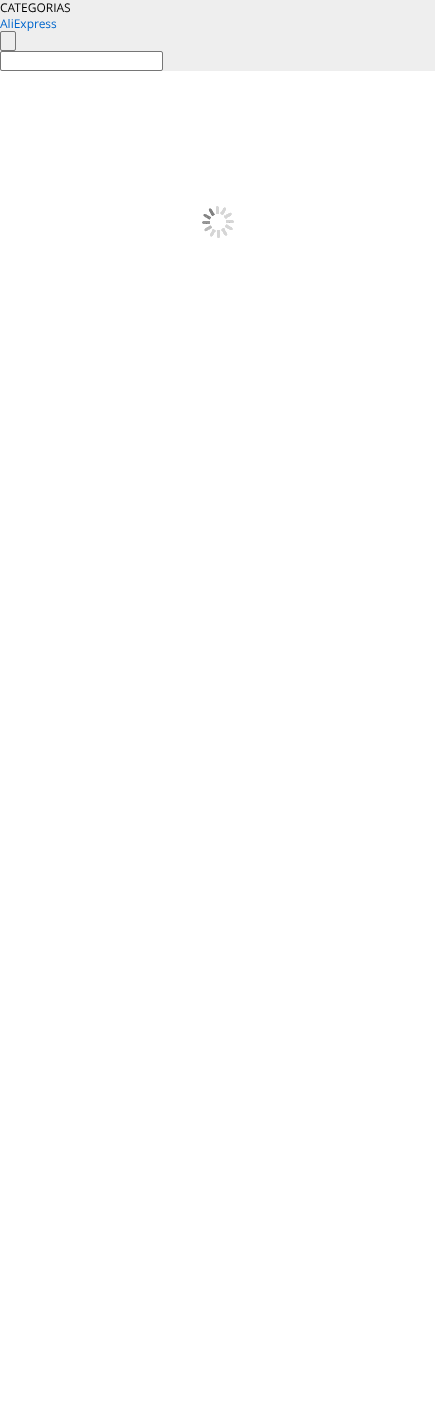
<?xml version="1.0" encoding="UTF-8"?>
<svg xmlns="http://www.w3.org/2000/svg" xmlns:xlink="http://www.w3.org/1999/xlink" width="435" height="1422">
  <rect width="100%" height="100%" fill="#eeeeee" />
  <rect x="0.5" y="31.5" width="15" height="19" rx="1.5" fill="none" stroke="#767676" />
  <rect x="0.5" y="51.5" width="162" height="19" rx="1.5" fill="#ffffff" stroke="#767676" />
  <rect y="71" width="435" height="1351" fill="#ffffff" />
  <image x="202" y="206" width="32" height="32" xlink:href="image1.png" />
  <text x="0" y="12" style="font-family: Open Sans; font-size: 12px; fill: #000000">CATEGORIAS</text>
  <text x="0" y="28" style="font-family: Open Sans; font-size: 12px; fill: #0066cc">AliExpress</text>
</svg>
